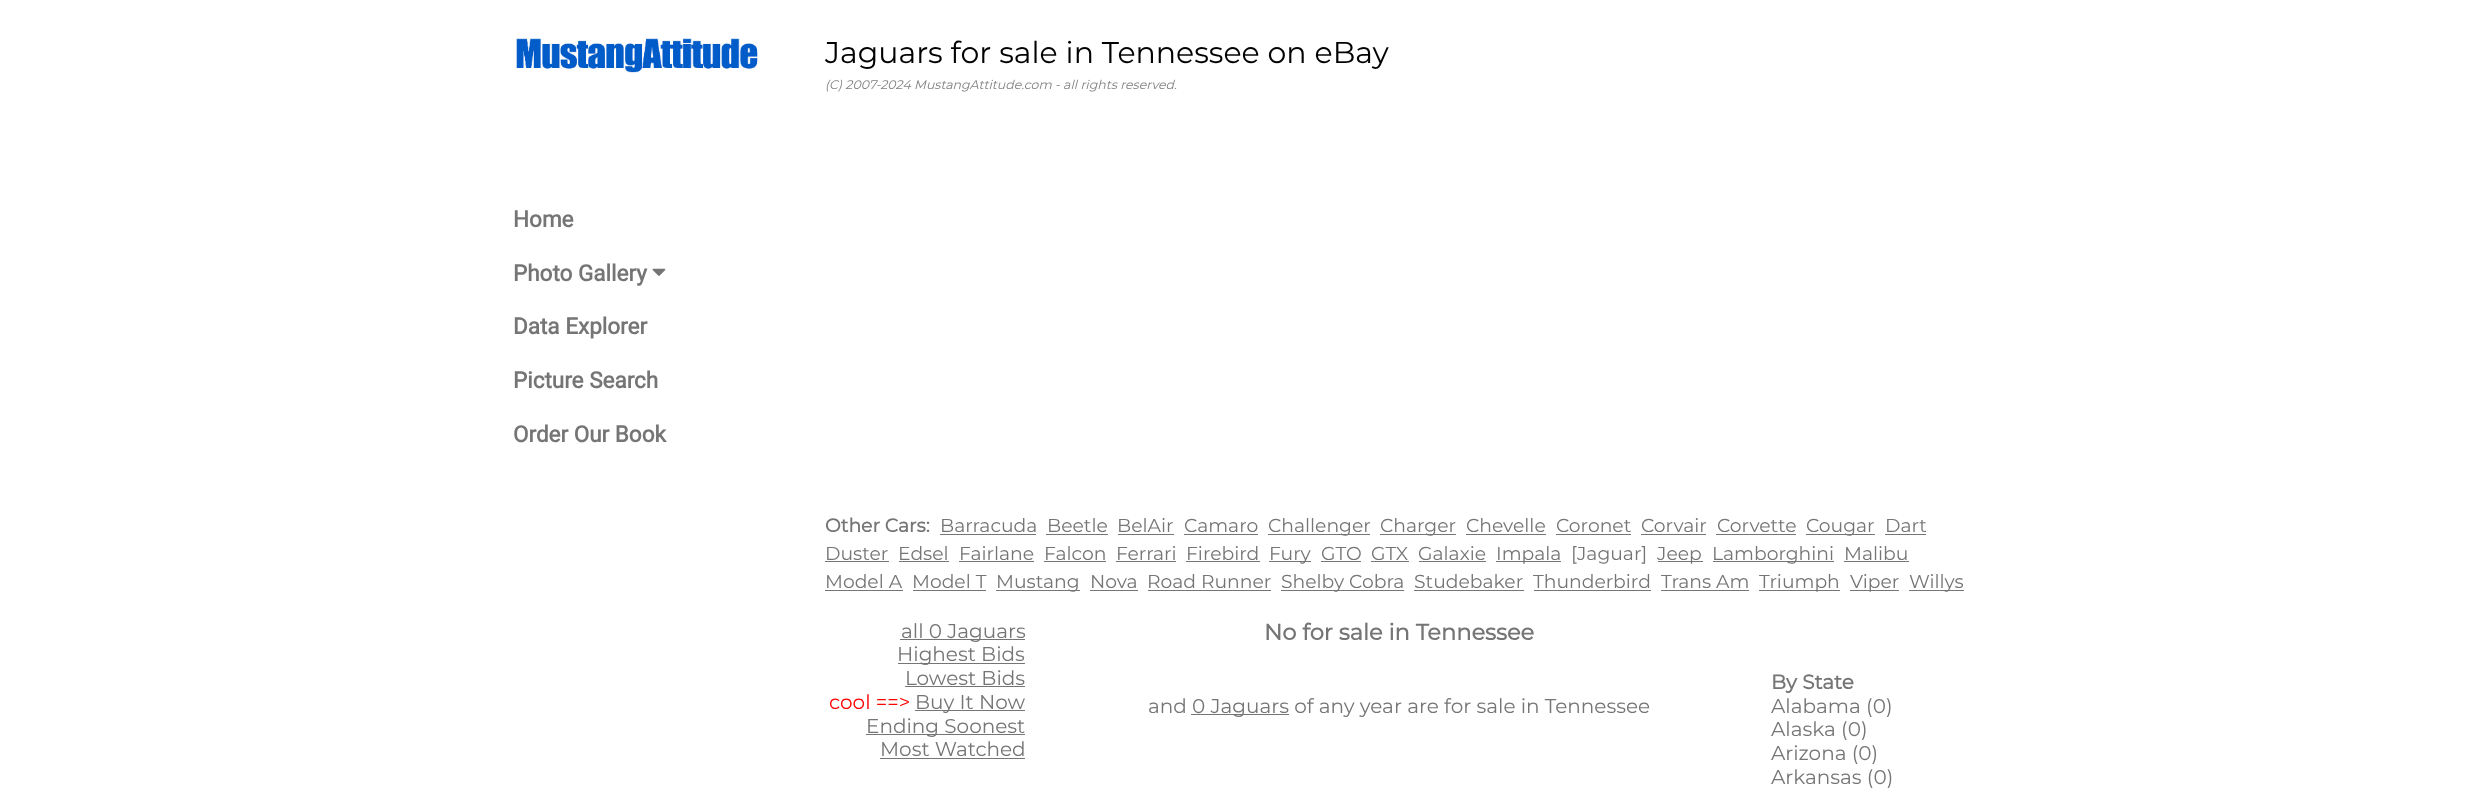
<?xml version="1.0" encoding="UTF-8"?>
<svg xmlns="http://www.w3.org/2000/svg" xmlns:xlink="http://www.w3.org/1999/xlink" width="2485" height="800">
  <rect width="100%" height="100%" fill="#ffffff" />
  <image x="515" y="38" width="244" height="35" xlink:href="image1.png" />
  <image x="652" y="268" width="14" height="8" xlink:href="image2.png" />
  <rect x="940" y="534" width="96" height="1" fill="#757575" />
  <rect x="1046" y="534" width="62" height="1" fill="#757575" />
  <rect x="1118" y="534" width="56" height="1" fill="#757575" />
  <rect x="1184" y="534" width="74" height="1" fill="#757575" />
  <rect x="1268" y="534" width="102" height="1" fill="#757575" />
  <rect x="1380" y="534" width="76" height="1" fill="#757575" />
  <rect x="1466" y="534" width="80" height="1" fill="#757575" />
  <rect x="1556" y="534" width="75" height="1" fill="#757575" />
  <rect x="1641" y="534" width="65" height="1" fill="#757575" />
  <rect x="1716" y="534" width="80" height="1" fill="#757575" />
  <rect x="1806" y="534" width="69" height="1" fill="#757575" />
  <rect x="1885" y="534" width="41" height="1" fill="#757575" />
  <rect x="825" y="561" width="64" height="1" fill="#757575" />
  <rect x="899" y="561" width="50" height="1" fill="#757575" />
  <rect x="959" y="561" width="75" height="1" fill="#757575" />
  <rect x="1044" y="561" width="62" height="1" fill="#757575" />
  <rect x="1116" y="561" width="60" height="1" fill="#757575" />
  <rect x="1186" y="561" width="74" height="1" fill="#757575" />
  <rect x="1269" y="561" width="42" height="1" fill="#757575" />
  <rect x="1321" y="561" width="40" height="1" fill="#757575" />
  <rect x="1371" y="561" width="38" height="1" fill="#757575" />
  <rect x="1419" y="561" width="67" height="1" fill="#757575" />
  <rect x="1496" y="561" width="65" height="1" fill="#757575" />
  <rect x="1658" y="561" width="45" height="1" fill="#757575" />
  <rect x="1713" y="561" width="121" height="1" fill="#757575" />
  <rect x="1844" y="561" width="65" height="1" fill="#757575" />
  <rect x="825" y="590" width="78" height="1" fill="#757575" />
  <rect x="913" y="590" width="73" height="1" fill="#757575" />
  <rect x="996" y="590" width="84" height="1" fill="#757575" />
  <rect x="1090" y="590" width="48" height="1" fill="#757575" />
  <rect x="1148" y="590" width="123" height="1" fill="#757575" />
  <rect x="1281" y="590" width="123" height="1" fill="#757575" />
  <rect x="1414" y="590" width="110" height="1" fill="#757575" />
  <rect x="1534" y="590" width="117" height="1" fill="#757575" />
  <rect x="1661" y="590" width="88" height="1" fill="#757575" />
  <rect x="1759" y="590" width="81" height="1" fill="#757575" />
  <rect x="1850" y="590" width="49" height="1" fill="#757575" />
  <rect x="1909" y="590" width="55" height="1" fill="#757575" />
  <rect x="900" y="639" width="125" height="1" fill="#757575" />
  <rect x="898" y="663" width="127" height="1" fill="#757575" />
  <rect x="905" y="686" width="120" height="1" fill="#757575" />
  <rect x="915" y="710" width="110" height="1" fill="#757575" />
  <rect x="866" y="734" width="159" height="1" fill="#757575" />
  <rect x="880" y="758" width="145" height="1" fill="#757575" />
  <rect x="1191" y="714" width="98" height="1" fill="#757575" />
  <text x="513" y="227" style="font-family: Roboto; font-size: 22.5px; font-weight: bold; fill: #757575">Home</text>
  <text x="513" y="281" style="font-family: Roboto; font-size: 22.5px; font-weight: bold; fill: #757575">Photo Gallery</text>
  <text x="513" y="334" style="font-family: Roboto; font-size: 22.5px; font-weight: bold; fill: #757575">Data Explorer</text>
  <text x="513" y="388" style="font-family: Roboto; font-size: 22.5px; font-weight: bold; fill: #757575">Picture Search</text>
  <text x="513" y="442" style="font-family: Roboto; font-size: 22.5px; font-weight: bold; fill: #757575">Order Our Book</text>
  <text x="825" y="63" style="font-family: Montserrat; font-size: 30px; font-weight: 100; fill: #000000">Jaguars for sale in Tennessee on eBay</text>
  <text x="825" y="89" style="font-family: Montserrat; font-size: 12.5px; font-weight: 100; font-style: italic; fill: #808080">(C) 2007-2024 MustangAttitude.com - all rights reserved.</text>
  <text x="825" y="532" style="font-family: Montserrat; font-size: 18.75px; font-weight: bold; fill: #757575">Other Cars:</text>
  <text x="940" y="532" style="font-family: Montserrat; font-size: 18.75px; font-weight: 100; fill: #757575">Barracuda</text>
  <text x="1047" y="532" style="font-family: Montserrat; font-size: 18.75px; font-weight: 100; fill: #757575">Beetle</text>
  <text x="1117" y="532" style="font-family: Montserrat; font-size: 18.75px; font-weight: 100; fill: #757575">BelAir</text>
  <text x="1184" y="532" style="font-family: Montserrat; font-size: 18.75px; font-weight: 100; fill: #757575">Camaro</text>
  <text x="1268" y="532" style="font-family: Montserrat; font-size: 18.75px; font-weight: 100; fill: #757575">Challenger</text>
  <text x="1380" y="532" style="font-family: Montserrat; font-size: 18.75px; font-weight: 100; fill: #757575">Charger</text>
  <text x="1466" y="532" style="font-family: Montserrat; font-size: 18.75px; font-weight: 100; fill: #757575">Chevelle</text>
  <text x="1556" y="532" style="font-family: Montserrat; font-size: 18.75px; font-weight: 100; fill: #757575">Coronet</text>
  <text x="1641" y="532" style="font-family: Montserrat; font-size: 18.75px; font-weight: 100; fill: #757575">Corvair</text>
  <text x="1717" y="532" style="font-family: Montserrat; font-size: 18.75px; font-weight: 100; fill: #757575">Corvette</text>
  <text x="1806" y="532" style="font-family: Montserrat; font-size: 18.75px; font-weight: 100; fill: #757575">Cougar</text>
  <text x="1885" y="532" style="font-family: Montserrat; font-size: 18.75px; font-weight: 100; fill: #757575">Dart</text>
  <text x="825" y="560" style="font-family: Montserrat; font-size: 18.75px; font-weight: 100; fill: #757575">Duster</text>
  <text x="898" y="560" style="font-family: Montserrat; font-size: 18.75px; font-weight: 100; fill: #757575">Edsel</text>
  <text x="959" y="560" style="font-family: Montserrat; font-size: 18.75px; font-weight: 100; fill: #757575">Fairlane</text>
  <text x="1044" y="560" style="font-family: Montserrat; font-size: 18.75px; font-weight: 100; fill: #757575">Falcon</text>
  <text x="1116" y="560" style="font-family: Montserrat; font-size: 18.75px; font-weight: 100; fill: #757575">Ferrari</text>
  <text x="1186" y="560" style="font-family: Montserrat; font-size: 18.75px; font-weight: 100; fill: #757575">Firebird</text>
  <text x="1269" y="560" style="font-family: Montserrat; font-size: 18.75px; font-weight: 100; fill: #757575">Fury</text>
  <text x="1321" y="560" style="font-family: Montserrat; font-size: 18.75px; font-weight: 100; fill: #757575">GTO</text>
  <text x="1371" y="560" style="font-family: Montserrat; font-size: 18.75px; font-weight: 100; fill: #757575">GTX</text>
  <text x="1418" y="560" style="font-family: Montserrat; font-size: 18.75px; font-weight: 100; fill: #757575">Galaxie</text>
  <text x="1496" y="560" style="font-family: Montserrat; font-size: 18.75px; font-weight: 100; fill: #757575">Impala</text>
  <text x="1571" y="560" style="font-family: Montserrat; font-size: 18.75px; font-weight: 100; fill: #757575">[Jaguar]</text>
  <text x="1657" y="560" style="font-family: Montserrat; font-size: 18.75px; font-weight: 100; fill: #757575">Jeep</text>
  <text x="1712" y="560" style="font-family: Montserrat; font-size: 18.75px; font-weight: 100; fill: #757575">Lamborghini</text>
  <text x="1844" y="560" style="font-family: Montserrat; font-size: 18.75px; font-weight: 100; fill: #757575">Malibu</text>
  <text x="825" y="588" style="font-family: Montserrat; font-size: 18.75px; font-weight: 100; fill: #757575">Model A</text>
  <text x="912" y="588" style="font-family: Montserrat; font-size: 18.75px; font-weight: 100; fill: #757575">Model T</text>
  <text x="996" y="588" style="font-family: Montserrat; font-size: 18.75px; font-weight: 100; fill: #757575">Mustang</text>
  <text x="1090" y="588" style="font-family: Montserrat; font-size: 18.75px; font-weight: 100; fill: #757575">Nova</text>
  <text x="1147" y="588" style="font-family: Montserrat; font-size: 18.75px; font-weight: 100; fill: #757575">Road Runner</text>
  <text x="1281" y="588" style="font-family: Montserrat; font-size: 18.75px; font-weight: 100; fill: #757575">Shelby Cobra</text>
  <text x="1414" y="588" style="font-family: Montserrat; font-size: 18.75px; font-weight: 100; fill: #757575">Studebaker</text>
  <text x="1533" y="588" style="font-family: Montserrat; font-size: 18.75px; font-weight: 100; fill: #757575">Thunderbird</text>
  <text x="1661" y="588" style="font-family: Montserrat; font-size: 18.75px; font-weight: 100; fill: #757575">Trans Am</text>
  <text x="1759" y="588" style="font-family: Montserrat; font-size: 18.75px; font-weight: 100; fill: #757575">Triumph</text>
  <text x="1850" y="588" style="font-family: Montserrat; font-size: 18.75px; font-weight: 100; fill: #757575">Viper</text>
  <text x="1909" y="588" style="font-family: Montserrat; font-size: 18.75px; font-weight: 100; fill: #757575">Willys</text>
  <text x="901" y="638" style="font-family: Montserrat; font-size: 20px; font-weight: 100; fill: #757575">all 0 Jaguars</text>
  <text x="897" y="661" style="font-family: Montserrat; font-size: 20px; font-weight: 100; fill: #757575">Highest Bids</text>
  <text x="905" y="685" style="font-family: Montserrat; font-size: 20px; font-weight: 100; fill: #757575">Lowest Bids</text>
  <text x="829" y="709" style="font-family: Montserrat; font-size: 20px; font-weight: 100; fill: #ff0000">cool ==&gt;</text>
  <text x="915" y="709" style="font-family: Montserrat; font-size: 20px; font-weight: 100; fill: #757575">Buy It Now</text>
  <text x="866" y="733" style="font-family: Montserrat; font-size: 20px; font-weight: 100; fill: #757575">Ending Soonest</text>
  <text x="880" y="756" style="font-family: Montserrat; font-size: 20px; font-weight: 100; fill: #757575">Most Watched</text>
  <text x="1264" y="640" style="font-family: Montserrat; font-size: 22.5px; font-weight: bold; fill: #757575">No for sale in Tennessee</text>
  <text x="1148" y="713" style="font-family: Montserrat; font-size: 20px; font-weight: 100; fill: #757575">and</text>
  <text x="1192" y="713" style="font-family: Montserrat; font-size: 20px; font-weight: 100; fill: #757575">0 Jaguars of any year are for sale in Tennessee</text>
  <text x="1771" y="689" style="font-family: Montserrat; font-size: 20px; font-weight: bold; fill: #757575">By State</text>
  <text x="1771" y="713" style="font-family: Montserrat; font-size: 20px; font-weight: 100; fill: #757575">Alabama (0)</text>
  <text x="1771" y="736" style="font-family: Montserrat; font-size: 20px; font-weight: 100; fill: #757575">Alaska (0)</text>
  <text x="1771" y="760" style="font-family: Montserrat; font-size: 20px; font-weight: 100; fill: #757575">Arizona (0)</text>
  <text x="1771" y="784" style="font-family: Montserrat; font-size: 20px; font-weight: 100; fill: #757575">Arkansas (0)</text>
</svg>
